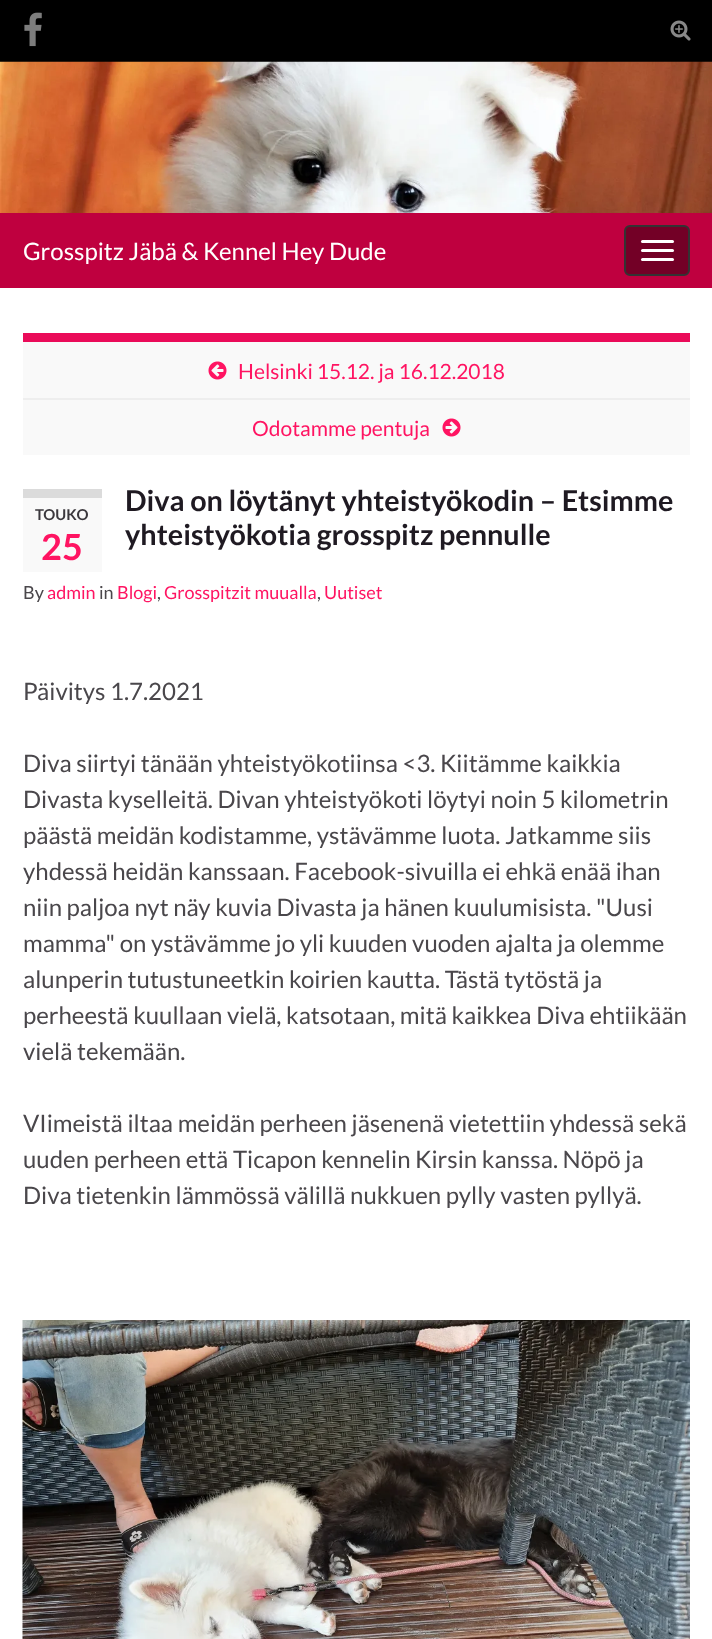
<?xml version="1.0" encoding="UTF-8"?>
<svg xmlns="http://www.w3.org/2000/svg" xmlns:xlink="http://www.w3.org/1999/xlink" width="712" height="1639">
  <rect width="100%" height="100%" fill="#ffffff" />
  <rect width="712" height="62" fill="#000000" />
  <image x="24" y="12" width="18" height="35" xlink:href="image1.png" />
  <image x="670" y="20" width="21" height="21" xlink:href="image2.png" />
  <image x="0" y="61" width="712" height="152" xlink:href="image3.png" />
  <rect y="213" width="712" height="75" fill="#bf003f" />
  <rect x="625" y="226" width="64" height="49" rx="5" fill="#730026" stroke="#333333" stroke-width="2" />
  <rect x="641" y="240" width="33" height="3" rx="1.5" fill="#ffffff" />
  <rect x="641" y="249" width="33" height="3" rx="1.5" fill="#ffffff" />
  <rect x="641" y="258" width="33" height="3" rx="1.5" fill="#ffffff" />
  <rect x="23" y="342" width="667" height="113" fill="#f9f9f9" />
  <rect x="23" y="333" width="667" height="9" fill="#ea0b59" />
  <image x="208" y="361" width="19" height="19" xlink:href="image4.png" />
  <rect x="23" y="398" width="667" height="2" fill="#eeeeee" />
  <image x="442" y="418" width="19" height="19" xlink:href="image5.png" />
  <rect x="23" y="498" width="79" height="74" fill="#f9f9f9" />
  <rect x="23" y="489" width="79" height="9" fill="#dbdbdb" />
  <image x="22" y="1320" width="668" height="319" xlink:href="image6.png" />
  <text x="23" y="260" style="font-family: Lato; font-size: 24px; fill: #ffffff">Grosspitz Jäbä &amp; Kennel Hey Dude</text>
  <text x="238" y="379" style="font-family: Lato; font-size: 21px; fill: #ff1462">Helsinki 15.12. ja 16.12.2018</text>
  <text x="252" y="436" style="font-family: Lato; font-size: 21px; fill: #ff1462">Odotamme pentuja</text>
  <text x="35" y="520" style="font-family: Lato; font-size: 15px; font-weight: bold; fill: #3b383d">TOUKO</text>
  <text x="41" y="560" style="font-family: Lato; font-size: 36px; font-weight: bold; fill: #ff1462">25</text>
  <text x="125" y="511" style="font-family: Lato; font-size: 28.75px; font-weight: bold; fill: #1f1a22">Diva on löytänyt yhteistyökodin – Etsimme</text>
  <text x="125" y="545" style="font-family: Lato; font-size: 28.75px; font-weight: bold; fill: #1f1a22">yhteistyökotia grosspitz pennulle</text>
  <text x="23" y="599" style="font-family: Lato; font-size: 18px; fill: #4a474b">By</text>
  <text x="47" y="599" style="font-family: Lato; font-size: 18px; fill: #ff1462">admin</text>
  <text x="99" y="599" style="font-family: Lato; font-size: 18px; fill: #4a474b">in</text>
  <text x="117" y="599" style="font-family: Lato; font-size: 18px; fill: #ff1462">Blogi</text>
  <text x="157" y="599" style="font-family: Lato; font-size: 18px; fill: #4a474b">,</text>
  <text x="164" y="599" style="font-family: Lato; font-size: 18px; fill: #ff1462">Grosspitzit muualla</text>
  <text x="317" y="599" style="font-family: Lato; font-size: 18px; fill: #4a474b">,</text>
  <text x="324" y="599" style="font-family: Lato; font-size: 18px; fill: #ff1462">Uutiset</text>
  <text x="23" y="700" style="font-family: Lato; font-size: 24px; fill: #4a474b">Päivitys 1.7.2021</text>
  <text x="23" y="772" style="font-family: Lato; font-size: 24px; fill: #4a474b">Diva siirtyi tänään yhteistyökotiinsa &lt;3. Kiitämme kaikkia</text>
  <text x="23" y="808" style="font-family: Lato; font-size: 24px; fill: #4a474b">Divasta kyselleitä. Divan yhteistyökoti löytyi noin 5 kilometrin</text>
  <text x="23" y="844" style="font-family: Lato; font-size: 24px; fill: #4a474b">päästä meidän kodistamme, ystävämme luota. Jatkamme siis</text>
  <text x="23" y="880" style="font-family: Lato; font-size: 24px; fill: #4a474b">yhdessä heidän kanssaan. Facebook-sivuilla ei ehkä enää ihan</text>
  <text x="23" y="916" style="font-family: Lato; font-size: 24px; fill: #4a474b">niin paljoa nyt näy kuvia Divasta ja hänen kuulumisista. "Uusi</text>
  <text x="23" y="952" style="font-family: Lato; font-size: 24px; fill: #4a474b">mamma" on ystävämme jo yli kuuden vuoden ajalta ja olemme</text>
  <text x="23" y="988" style="font-family: Lato; font-size: 24px; fill: #4a474b">alunperin tutustuneetkin koirien kautta. Tästä tytöstä ja</text>
  <text x="23" y="1024" style="font-family: Lato; font-size: 24px; fill: #4a474b">perheestä kuullaan vielä, katsotaan, mitä kaikkea Diva ehtiikään</text>
  <text x="23" y="1060" style="font-family: Lato; font-size: 24px; fill: #4a474b">vielä tekemään.</text>
  <text x="23" y="1132" style="font-family: Lato; font-size: 24px; fill: #4a474b">VIimeistä iltaa meidän perheen jäsenenä vietettiin yhdessä sekä</text>
  <text x="23" y="1168" style="font-family: Lato; font-size: 24px; fill: #4a474b">uuden perheen että Ticapon kennelin Kirsin kanssa. Nöpö ja</text>
  <text x="23" y="1204" style="font-family: Lato; font-size: 24px; fill: #4a474b">Diva tietenkin lämmössä välillä nukkuen pylly vasten pyllyä.</text>
</svg>
